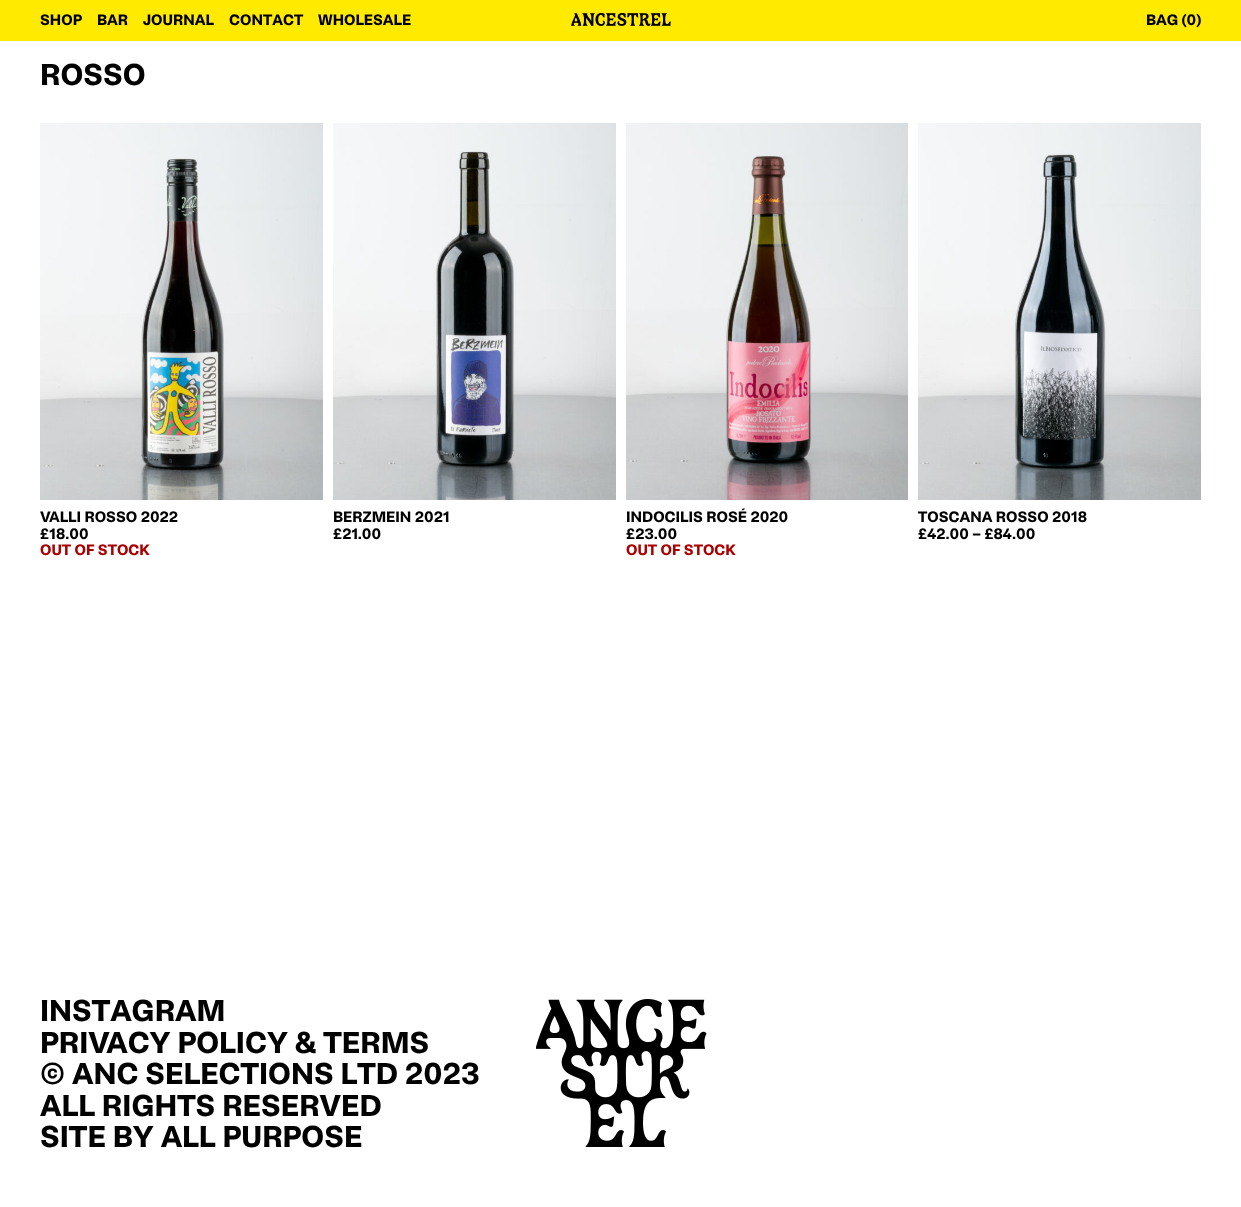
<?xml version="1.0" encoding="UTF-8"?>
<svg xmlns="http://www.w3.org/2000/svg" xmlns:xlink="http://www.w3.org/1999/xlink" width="1241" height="1207">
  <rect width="100%" height="100%" fill="#ffffff" />
  <rect width="1241" height="41" fill="#ffea00" />
  <image x="571" y="13" width="100" height="13" xlink:href="image1.png" />
  <image x="40" y="123" width="283" height="377" xlink:href="image2.png" />
  <image x="333" y="123" width="283" height="377" xlink:href="image3.png" />
  <image x="626" y="123" width="282" height="377" xlink:href="image4.png" />
  <image x="918" y="123" width="283" height="377" xlink:href="image5.png" />
  <image x="536" y="999" width="171" height="148" xlink:href="image6.png" />
  <text x="40" y="25" style="font-family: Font; font-size: 15px; font-weight: bold; fill: #000000">SHOP</text>
  <text x="97" y="25" style="font-family: Font; font-size: 15px; font-weight: bold; fill: #000000">BAR</text>
  <text x="143" y="25" style="font-family: Font; font-size: 15px; font-weight: bold; fill: #000000">JOURNAL</text>
  <text x="229" y="25" style="font-family: Font; font-size: 15px; font-weight: bold; fill: #000000">CONTACT</text>
  <text x="318" y="25" style="font-family: Font; font-size: 15px; font-weight: bold; fill: #000000">WHOLESALE</text>
  <text x="1146" y="25" style="font-family: Font; font-size: 15px; font-weight: bold; fill: #000000">BAG (0)</text>
  <text x="40" y="85" style="font-family: Font; font-size: 30px; font-weight: bold; fill: #000000">ROSSO</text>
  <text x="40" y="522" style="font-family: Font; font-size: 15px; font-weight: bold; fill: #000000">VALLI ROSSO 2022</text>
  <text x="40" y="539" style="font-family: Font; font-size: 15px; font-weight: bold; fill: #000000">£18.00</text>
  <text x="40" y="555" style="font-family: Font; font-size: 15px; font-weight: bold; fill: #aa0000">OUT OF STOCK</text>
  <text x="333" y="522" style="font-family: Font; font-size: 15px; font-weight: bold; fill: #000000">BERZMEIN 2021</text>
  <text x="333" y="539" style="font-family: Font; font-size: 15px; font-weight: bold; fill: #000000">£21.00</text>
  <text x="626" y="522" style="font-family: Font; font-size: 15px; font-weight: bold; fill: #000000">INDOCILIS ROSÉ 2020</text>
  <text x="626" y="539" style="font-family: Font; font-size: 15px; font-weight: bold; fill: #000000">£23.00</text>
  <text x="626" y="555" style="font-family: Font; font-size: 15px; font-weight: bold; fill: #aa0000">OUT OF STOCK</text>
  <text x="918" y="522" style="font-family: Font; font-size: 15px; font-weight: bold; fill: #000000">TOSCANA ROSSO 2018</text>
  <text x="918" y="539" style="font-family: Font; font-size: 15px; font-weight: bold; fill: #000000">£42.00 – £84.00</text>
  <text x="40" y="1021" style="font-family: Font; font-size: 30px; font-weight: bold; fill: #000000">INSTAGRAM</text>
  <text x="40" y="1053" style="font-family: Font; font-size: 30px; font-weight: bold; fill: #000000">PRIVACY POLICY &amp; TERMS</text>
  <text x="40" y="1084" style="font-family: Font; font-size: 30px; font-weight: bold; fill: #000000">© ANC SELECTIONS LTD 2023</text>
  <text x="40" y="1116" style="font-family: Font; font-size: 30px; font-weight: bold; fill: #000000">ALL RIGHTS RESERVED</text>
  <text x="40" y="1147" style="font-family: Font; font-size: 30px; font-weight: bold; fill: #000000">SITE BY ALL PURPOSE</text>
</svg>
